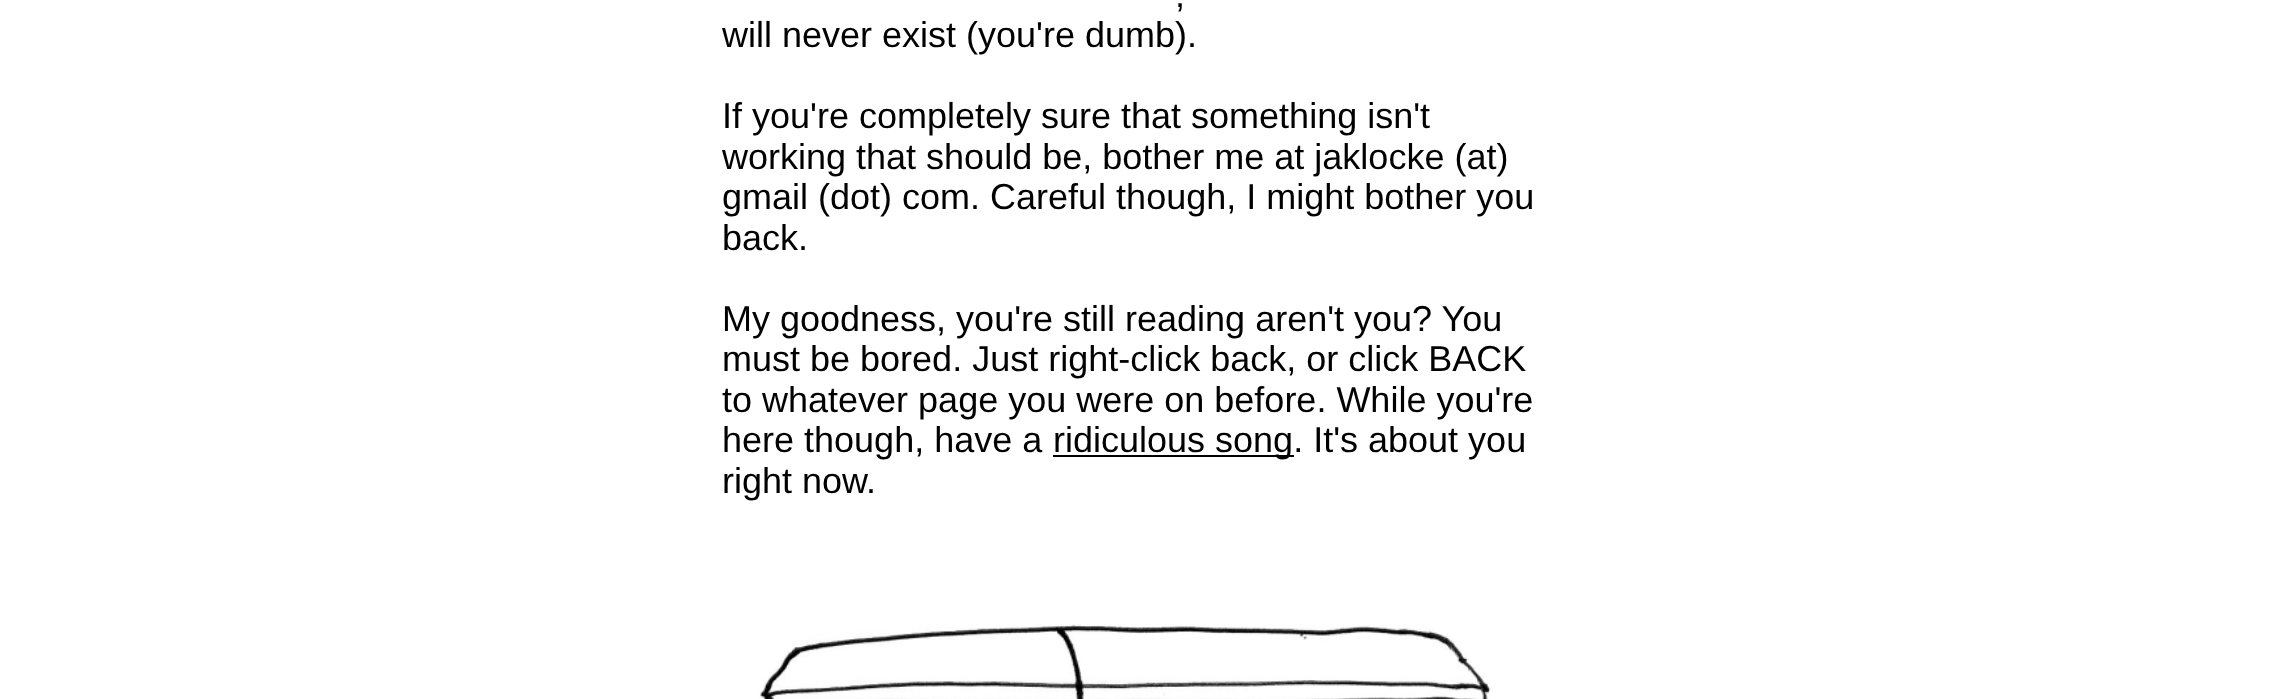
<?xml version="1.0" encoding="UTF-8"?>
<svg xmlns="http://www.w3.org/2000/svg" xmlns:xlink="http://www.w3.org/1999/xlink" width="2277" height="699">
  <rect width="100%" height="100%" fill="#ffffff" />
  <rect x="1053" y="455" width="241" height="2" fill="#000000" />
  <image x="759" y="624" width="732" height="75" xlink:href="image1.png" />
  <text x="1175" y="7" style="font-family: Liberation Sans; font-size: 36px; fill: #000000">,</text>
  <text x="722" y="47" style="font-family: Liberation Sans; font-size: 36px; fill: #000000">will never exist (you're dumb).</text>
  <text x="722" y="128" style="font-family: Liberation Sans; font-size: 36px; fill: #000000">If you're completely sure that something isn't</text>
  <text x="722" y="169" style="font-family: Liberation Sans; font-size: 36px; fill: #000000">working that should be, bother me at jaklocke (at)</text>
  <text x="722" y="209" style="font-family: Liberation Sans; font-size: 36px; fill: #000000">gmail (dot) com. Careful though, I might bother you</text>
  <text x="722" y="250" style="font-family: Liberation Sans; font-size: 36px; fill: #000000">back.</text>
  <text x="722" y="331" style="font-family: Liberation Sans; font-size: 36px; fill: #000000">My goodness, you're still reading aren't you? You</text>
  <text x="722" y="371" style="font-family: Liberation Sans; font-size: 36px; fill: #000000">must be bored. Just right-click back, or click BACK</text>
  <text x="722" y="412" style="font-family: Liberation Sans; font-size: 36px; fill: #000000">to whatever page you were on before. While you're</text>
  <text x="722" y="452" style="font-family: Liberation Sans; font-size: 36px; fill: #000000">here though, have a</text>
  <text x="1053" y="452" style="font-family: Liberation Sans; font-size: 36px; fill: #000000">ridiculous song. It's about you</text>
  <text x="722" y="493" style="font-family: Liberation Sans; font-size: 36px; fill: #000000">right now.</text>
</svg>
